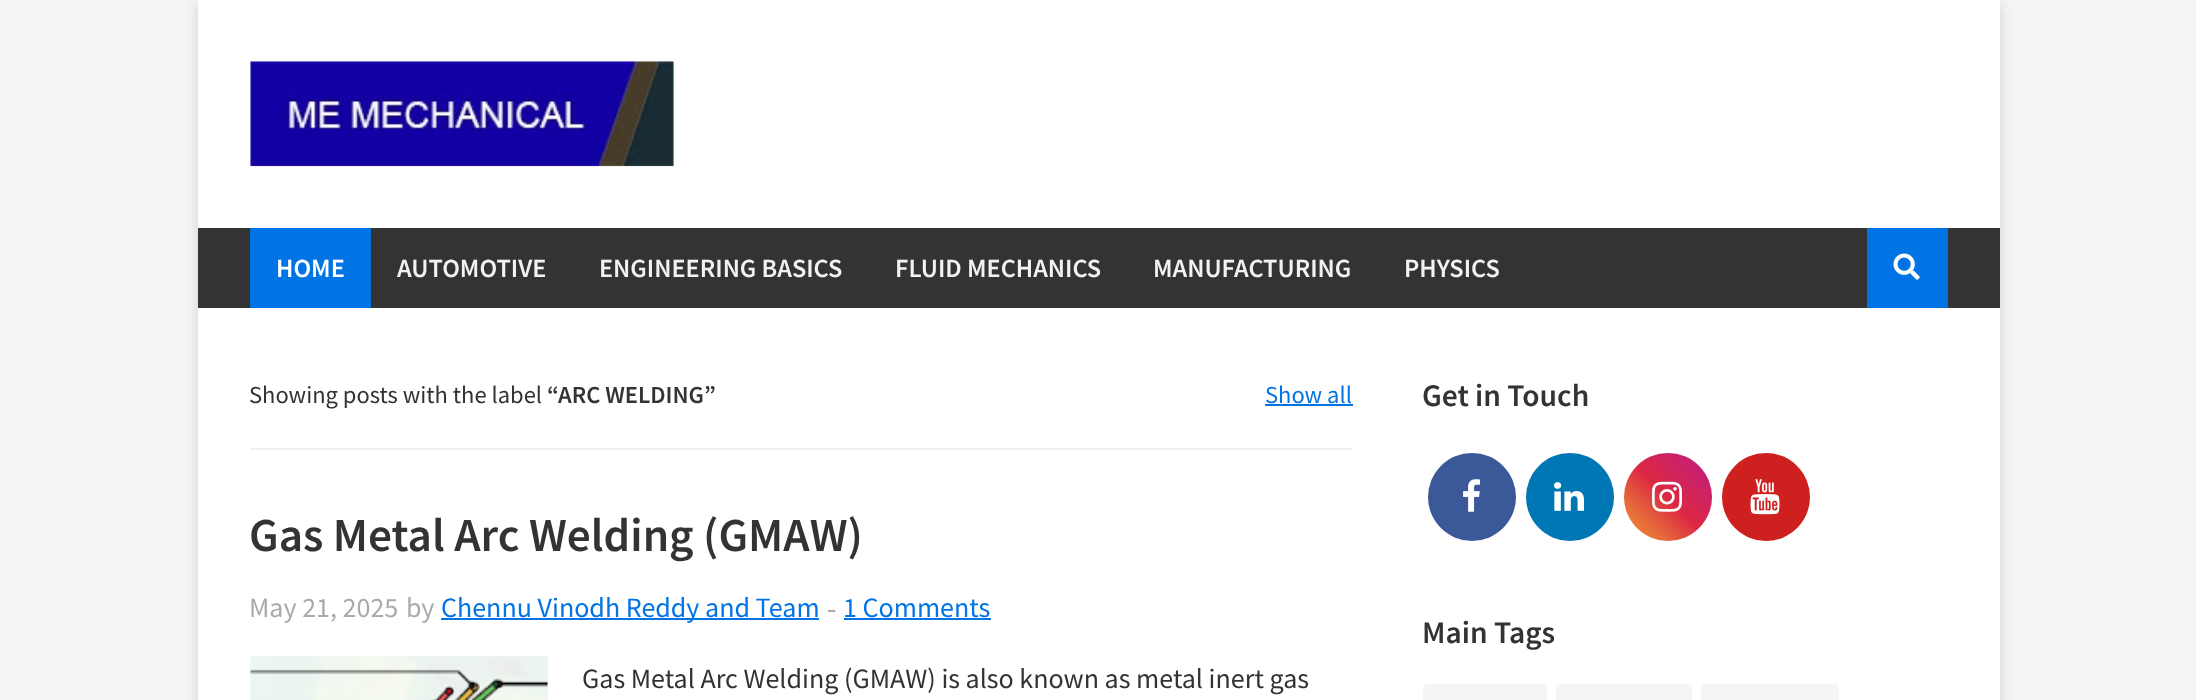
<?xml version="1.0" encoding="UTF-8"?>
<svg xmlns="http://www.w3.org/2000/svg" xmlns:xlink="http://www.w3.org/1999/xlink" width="2196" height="700">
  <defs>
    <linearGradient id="g1" gradientUnits="userSpaceOnUse" x1="1624" y1="541" x2="1712" y2="453"><stop offset="0" stop-color="#f09433" /><stop offset="0.25" stop-color="#e6683c" /><stop offset="0.5" stop-color="#dc2743" /><stop offset="0.75" stop-color="#cc2366" /><stop offset="1" stop-color="#bc1888" /></linearGradient>
  </defs>
  <rect width="100%" height="100%" fill="#f5f5f5" />
  <rect x="198" y="4" width="1802" height="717" fill="#000000" fill-opacity="0.15" filter="blur(7px)" />
  <rect x="198" width="1802" height="700" fill="#ffffff" />
  <image x="250" y="61" width="424" height="106" xlink:href="image1.png" />
  <rect x="198" y="228" width="1802" height="80" fill="#333333" />
  <rect x="250" y="228" width="121" height="80" fill="#0073e5" />
  <rect x="1867" y="228" width="81" height="80" fill="#0073e5" />
  <image x="1893" y="253" width="27" height="27" xlink:href="image2.png" />
  <rect x="250" y="448" width="1103" height="2" fill="#f2f2f2" />
  <rect x="1265" y="404" width="88" height="2" fill="#0073e5" />
  <rect x="441" y="618" width="378" height="2" fill="#0073e5" />
  <rect x="844" y="618" width="147" height="2" fill="#0073e5" />
  <rect x="250" y="656" width="298" height="44" fill="#f7f7f7" />
  <image x="250" y="656" width="298" height="44" xlink:href="image3.png" />
  <circle cx="1472" cy="497" r="44" fill="#3b5998" />
  <image x="1463" y="479" width="17" height="33" xlink:href="image4.png" />
  <circle cx="1570" cy="497" r="44" fill="#0077b5" />
  <image x="1554" y="482" width="30" height="29" xlink:href="image5.png" />
  <circle cx="1668" cy="497" r="44" fill="url(#g1)" />
  <image x="1652" y="481" width="30" height="31" xlink:href="image6.png" />
  <circle cx="1766" cy="497" r="44" fill="#cd201f" />
  <image x="1750" y="479" width="30" height="36" xlink:href="image7.png" />
  <rect x="1423" y="684" width="124" height="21" rx="5" fill="#f5f5f5" />
  <rect x="1556" y="684" width="136" height="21" rx="5" fill="#f5f5f5" />
  <rect x="1701" y="684" width="138" height="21" rx="5" fill="#f5f5f5" />
  <text x="276" y="277" style="font-family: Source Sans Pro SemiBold; font-size: 26.25px; font-weight: 600; fill: #ffffff">HOME</text>
  <text x="397" y="277" style="font-family: Source Sans Pro SemiBold; font-size: 26.25px; font-weight: 600; fill: #f2f2f2">AUTOMOTIVE</text>
  <text x="599" y="277" style="font-family: Source Sans Pro SemiBold; font-size: 26.25px; font-weight: 600; fill: #f2f2f2">ENGINEERING BASICS</text>
  <text x="895" y="277" style="font-family: Source Sans Pro SemiBold; font-size: 26.25px; font-weight: 600; fill: #f2f2f2">FLUID MECHANICS</text>
  <text x="1153" y="277" style="font-family: Source Sans Pro SemiBold; font-size: 26.25px; font-weight: 600; fill: #f2f2f2">MANUFACTURING</text>
  <text x="1404" y="277" style="font-family: Source Sans Pro SemiBold; font-size: 26.25px; font-weight: 600; fill: #f2f2f2">PHYSICS</text>
  <text x="249" y="403" style="font-family: Source Sans Pro; font-size: 24.5px; fill: #333333">Showing posts with the label</text>
  <text x="547" y="403" style="font-family: Source Sans Pro SemiBold; font-size: 24.5px; font-weight: 600; fill: #333333">“</text>
  <text x="558" y="403" style="font-family: Source Sans Pro SemiBold; font-size: 24.5px; font-weight: 600; fill: #333333">ARC WELDING”</text>
  <text x="1265" y="403" style="font-family: Source Sans Pro; font-size: 24.5px; fill: #0073e5">Show all</text>
  <text x="249" y="551" style="font-family: Source Sans Pro SemiBold; font-size: 47.25px; font-weight: 600; fill: #333333">Gas Metal Arc Welding (GMAW)</text>
  <text x="249" y="617" style="font-family: Source Sans Pro; font-size: 28px; fill: #aaaaaa">May 21, 2025</text>
  <text x="406" y="617" style="font-family: Source Sans Pro; font-size: 28px; fill: #aaaaaa">by</text>
  <text x="441" y="617" style="font-family: Source Sans Pro; font-size: 28px; fill: #0073e5">Chennu Vinodh Reddy and Team</text>
  <text x="827" y="617" style="font-family: Liberation Sans; font-size: 28px; fill: #aaaaaa">‑</text>
  <text x="843" y="617" style="font-family: Source Sans Pro; font-size: 28px; fill: #0073e5">1 Comments</text>
  <text x="582" y="688" style="font-family: Source Sans Pro; font-size: 28px; fill: #333333">Gas Metal Arc Welding (GMAW) is also known as metal inert gas</text>
  <text x="1422" y="406" style="font-family: Source Sans Pro SemiBold; font-size: 31.5px; font-weight: 600; fill: #333333">Get in Touch</text>
  <text x="1422" y="643" style="font-family: Source Sans Pro SemiBold; font-size: 31.5px; font-weight: 600; fill: #333333">Main Tags</text>
</svg>
